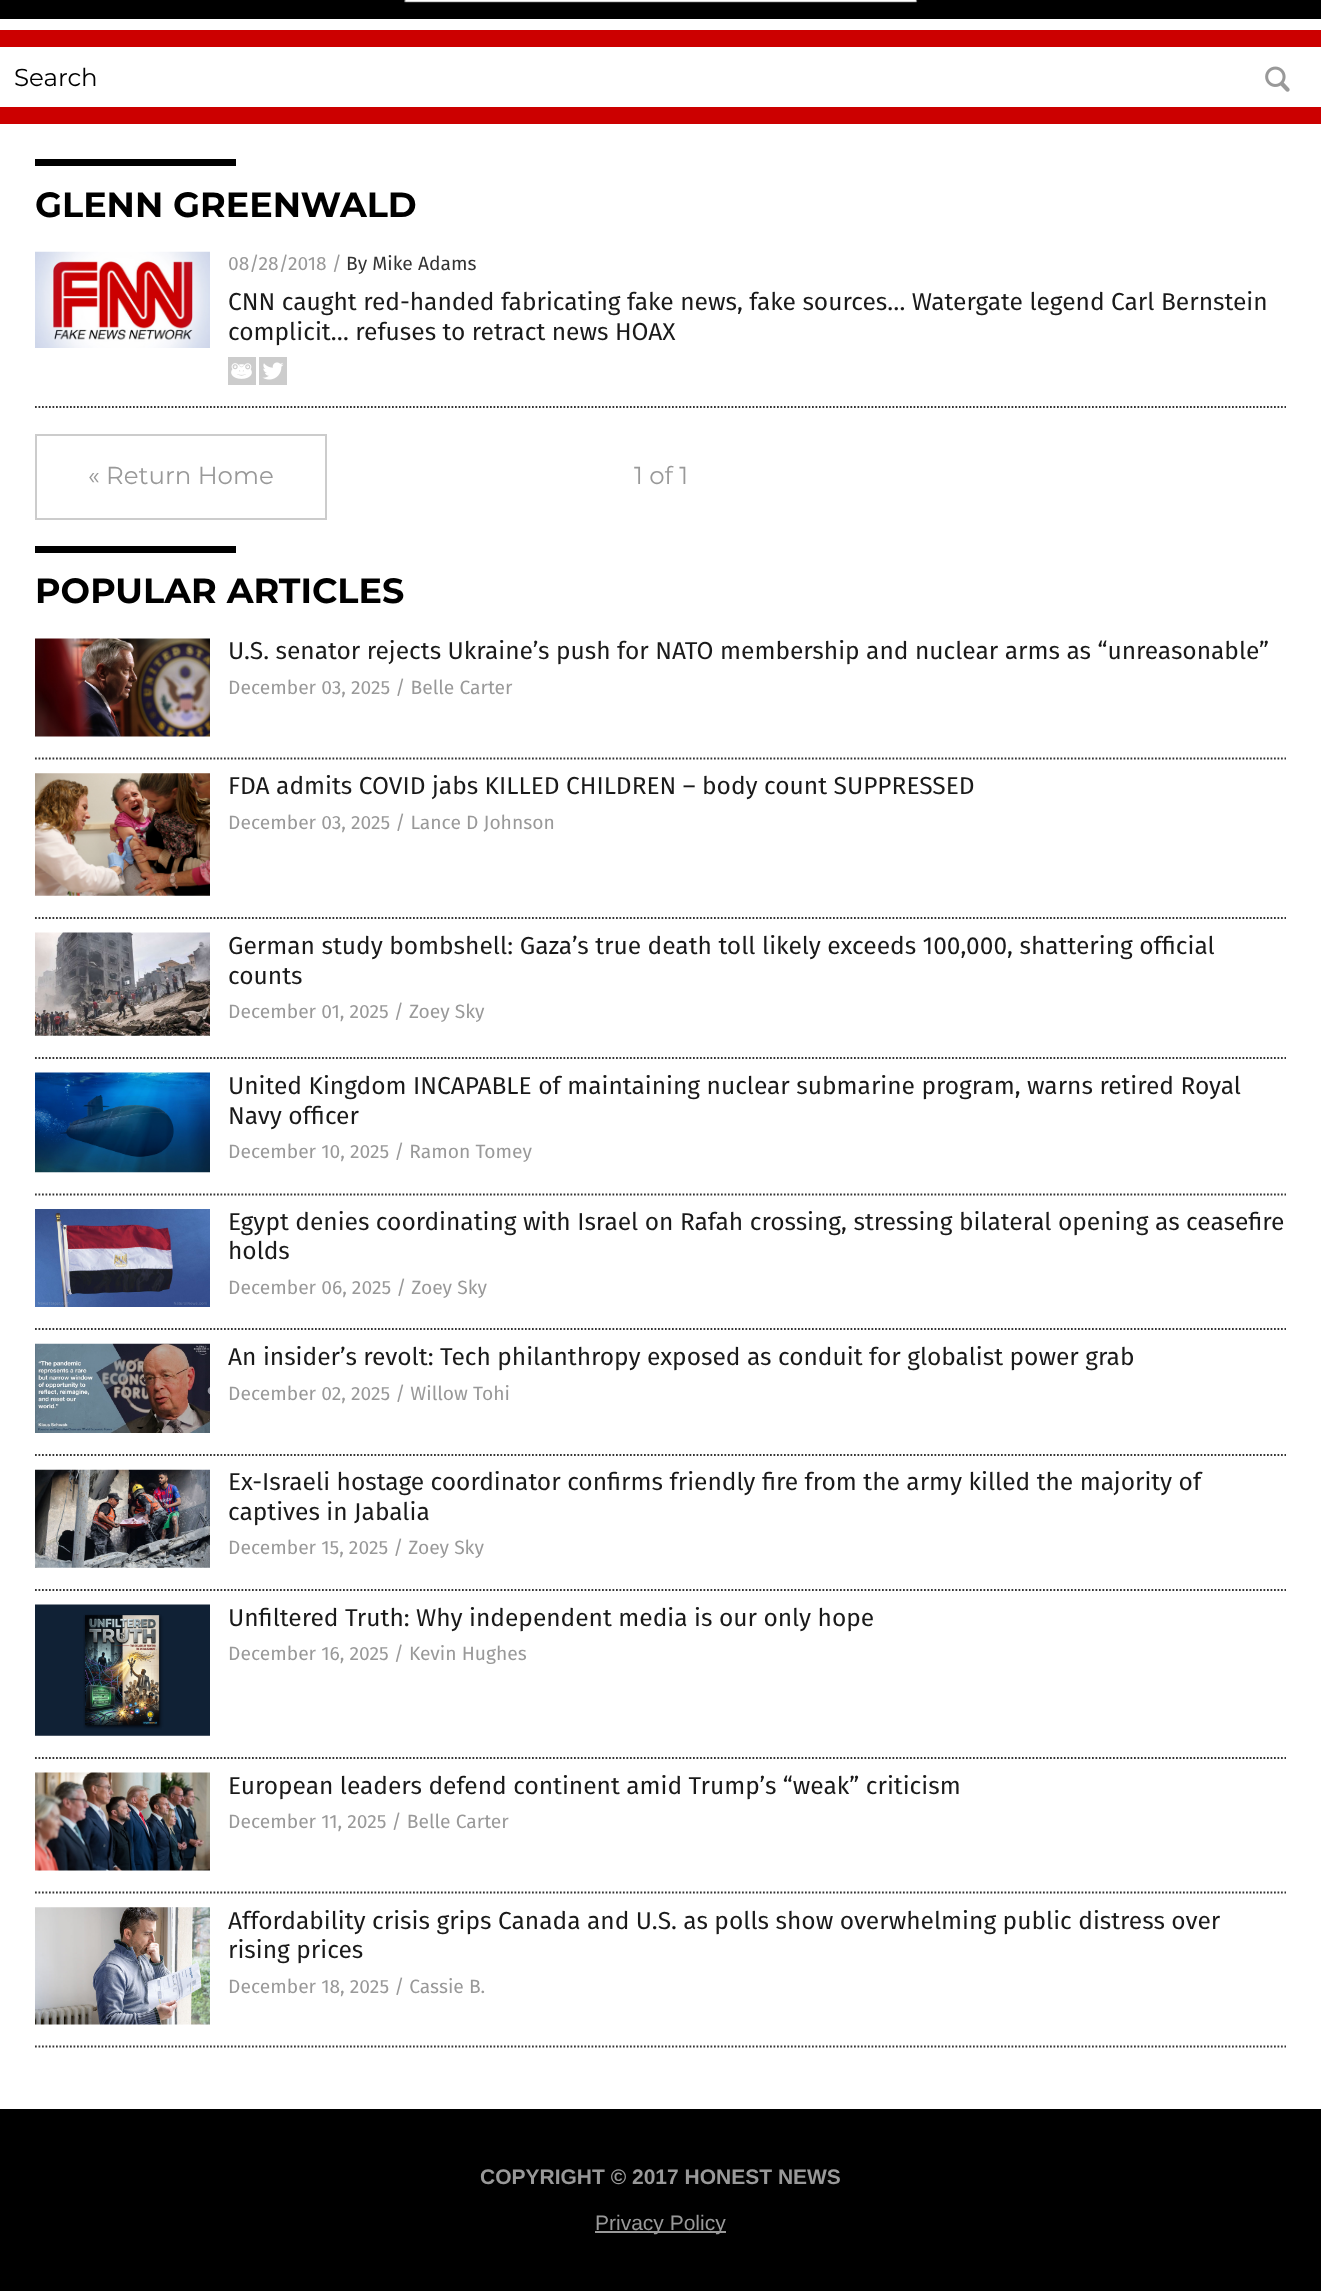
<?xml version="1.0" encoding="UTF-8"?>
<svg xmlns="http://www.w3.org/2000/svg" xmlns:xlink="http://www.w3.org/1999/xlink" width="1321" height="2291">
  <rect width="100%" height="100%" fill="#000000" />
  <rect y="30" width="1321" height="94" fill="#cc0000" />
  <image x="404" y="0" width="514" height="3" xlink:href="image1.png" />
  <rect y="19" width="1321" height="11" fill="#ffffff" />
  <rect y="47" width="1321" height="60" fill="#ffffff" />
  <image x="1265" y="66" width="25" height="26" xlink:href="image2.png" />
  <rect y="124" width="1321" height="1985" fill="#ffffff" />
  <rect x="35" y="159" width="201" height="7" fill="#000000" />
  <path d="M 35 407 h 1251" fill="none" stroke="#343434" stroke-width="1.8" stroke-dasharray="1.75 1.75" />
  <image x="35" y="251" width="175" height="97" xlink:href="image3.png" />
  <image x="228" y="357" width="28" height="28" xlink:href="image4.png" />
  <image x="259" y="357" width="28" height="28" xlink:href="image5.png" />
  <rect x="36" y="435" width="290" height="84" fill="none" stroke="#cccccc" stroke-width="2" />
  <rect x="35" y="546" width="201" height="7" fill="#000000" />
  <path d="M 35 758.5 h 1251" fill="none" stroke="#343434" stroke-width="1.8" stroke-dasharray="1.75 1.75" />
  <image x="35" y="638" width="175" height="99" xlink:href="image6.png" />
  <path d="M 35 918 h 1251" fill="none" stroke="#343434" stroke-width="1.8" stroke-dasharray="1.75 1.75" />
  <image x="35" y="773" width="175" height="123" xlink:href="image7.png" />
  <path d="M 35 1058 h 1251" fill="none" stroke="#343434" stroke-width="1.8" stroke-dasharray="1.75 1.75" />
  <image x="35" y="932" width="175" height="104" xlink:href="image8.png" />
  <path d="M 35 1194.5 h 1251" fill="none" stroke="#343434" stroke-width="1.8" stroke-dasharray="1.75 1.75" />
  <image x="35" y="1072" width="175" height="101" xlink:href="image9.png" />
  <path d="M 35 1329 h 1251" fill="none" stroke="#343434" stroke-width="1.8" stroke-dasharray="1.75 1.75" />
  <image x="35" y="1209" width="175" height="98" xlink:href="image10.png" />
  <path d="M 35 1455 h 1251" fill="none" stroke="#343434" stroke-width="1.8" stroke-dasharray="1.75 1.75" />
  <image x="35" y="1343" width="175" height="90" xlink:href="image11.png" />
  <path d="M 35 1590 h 1251" fill="none" stroke="#343434" stroke-width="1.8" stroke-dasharray="1.75 1.75" />
  <image x="35" y="1469" width="175" height="99" xlink:href="image12.png" />
  <path d="M 35 1758 h 1251" fill="none" stroke="#343434" stroke-width="1.8" stroke-dasharray="1.75 1.75" />
  <image x="35" y="1604" width="175" height="132" xlink:href="image13.png" />
  <path d="M 35 1892.5 h 1251" fill="none" stroke="#343434" stroke-width="1.8" stroke-dasharray="1.75 1.75" />
  <image x="35" y="1772" width="175" height="99" xlink:href="image14.png" />
  <path d="M 35 2046.5 h 1251" fill="none" stroke="#343434" stroke-width="1.8" stroke-dasharray="1.75 1.75" />
  <image x="35" y="1907" width="175" height="118" xlink:href="image15.png" />
  <rect x="595" y="2231" width="131" height="2" fill="#999999" />
  <text x="14" y="86" style="font-family: Montserrat; font-size: 24.5px; fill: #000000">Search</text>
  <text x="35" y="217" style="font-family: Montserrat; font-size: 35px; font-weight: bold; fill: #000000">GLENN GREENWALD</text>
  <text x="228" y="270" style="font-family: Fira Sans; font-size: 19.25px; fill: #999999">08/28/2018 /</text>
  <text x="346" y="270" style="font-family: Fira Sans; font-size: 19.25px; fill: #333333">By Mike Adams</text>
  <text x="228" y="310" style="font-family: Fira Sans; font-size: 24.5px; fill: #1a1a1a">CNN caught red-handed fabricating fake news, fake sources… Watergate legend Carl Bernstein</text>
  <text x="228" y="340" style="font-family: Fira Sans; font-size: 24.5px; fill: #1a1a1a">complicit… refuses to retract news HOAX</text>
  <text x="88" y="484" style="font-family: Montserrat; font-size: 24.5px; fill: #999999">« Return Home</text>
  <text x="634" y="484" style="font-family: Montserrat; font-size: 24.5px; fill: #999999">1 of 1</text>
  <text x="35" y="603" style="font-family: Montserrat; font-size: 35px; font-weight: bold; fill: #000000">POPULAR ARTICLES</text>
  <text x="228" y="659" style="font-family: Fira Sans; font-size: 24.5px; fill: #1a1a1a">U.S. senator rejects Ukraine’s push for NATO membership and nuclear arms as “unreasonable”</text>
  <text x="228" y="694" style="font-family: Fira Sans; font-size: 19.25px; fill: #999999">December 03, 2025 / Belle Carter</text>
  <text x="228" y="794" style="font-family: Fira Sans; font-size: 24.5px; fill: #1a1a1a">FDA admits COVID jabs KILLED CHILDREN – body count SUPPRESSED</text>
  <text x="228" y="829" style="font-family: Fira Sans; font-size: 19.25px; fill: #999999">December 03, 2025 / Lance D Johnson</text>
  <text x="228" y="954" style="font-family: Fira Sans; font-size: 24.5px; fill: #1a1a1a">German study bombshell: Gaza’s true death toll likely exceeds 100,000, shattering official</text>
  <text x="228" y="984" style="font-family: Fira Sans; font-size: 24.5px; fill: #1a1a1a">counts</text>
  <text x="228" y="1018" style="font-family: Fira Sans; font-size: 19.25px; fill: #999999">December 01, 2025 / Zoey Sky</text>
  <text x="228" y="1094" style="font-family: Fira Sans; font-size: 24.5px; fill: #1a1a1a">United Kingdom INCAPABLE of maintaining nuclear submarine program, warns retired Royal</text>
  <text x="228" y="1124" style="font-family: Fira Sans; font-size: 24.5px; fill: #1a1a1a">Navy officer</text>
  <text x="228" y="1158" style="font-family: Fira Sans; font-size: 19.25px; fill: #999999">December 10, 2025 / Ramon Tomey</text>
  <text x="228" y="1230" style="font-family: Fira Sans; font-size: 24.5px; fill: #1a1a1a">Egypt denies coordinating with Israel on Rafah crossing, stressing bilateral opening as ceasefire</text>
  <text x="228" y="1259" style="font-family: Fira Sans; font-size: 24.5px; fill: #1a1a1a">holds</text>
  <text x="228" y="1294" style="font-family: Fira Sans; font-size: 19.25px; fill: #999999">December 06, 2025 / Zoey Sky</text>
  <text x="228" y="1365" style="font-family: Fira Sans; font-size: 24.5px; fill: #1a1a1a">An insider’s revolt: Tech philanthropy exposed as conduit for globalist power grab</text>
  <text x="228" y="1400" style="font-family: Fira Sans; font-size: 19.25px; fill: #999999">December 02, 2025 / Willow Tohi</text>
  <text x="228" y="1490" style="font-family: Fira Sans; font-size: 24.5px; fill: #1a1a1a">Ex-Israeli hostage coordinator confirms friendly fire from the army killed the majority of</text>
  <text x="228" y="1520" style="font-family: Fira Sans; font-size: 24.5px; fill: #1a1a1a">captives in Jabalia</text>
  <text x="228" y="1554" style="font-family: Fira Sans; font-size: 19.25px; fill: #999999">December 15, 2025 / Zoey Sky</text>
  <text x="228" y="1626" style="font-family: Fira Sans; font-size: 24.5px; fill: #1a1a1a">Unfiltered Truth: Why independent media is our only hope</text>
  <text x="228" y="1660" style="font-family: Fira Sans; font-size: 19.25px; fill: #999999">December 16, 2025 / Kevin Hughes</text>
  <text x="228" y="1794" style="font-family: Fira Sans; font-size: 24.5px; fill: #1a1a1a">European leaders defend continent amid Trump’s “weak” criticism</text>
  <text x="228" y="1828" style="font-family: Fira Sans; font-size: 19.25px; fill: #999999">December 11, 2025 / Belle Carter</text>
  <text x="228" y="1929" style="font-family: Fira Sans; font-size: 24.5px; fill: #1a1a1a">Affordability crisis grips Canada and U.S. as polls show overwhelming public distress over</text>
  <text x="228" y="1958" style="font-family: Fira Sans; font-size: 24.5px; fill: #1a1a1a">rising prices</text>
  <text x="228" y="1993" style="font-family: Fira Sans; font-size: 19.25px; fill: #999999">December 18, 2025 / Cassie B.</text>
  <text x="480" y="2184" style="font-family: Liberation Sans; font-size: 21px; font-weight: bold; fill: #999999">COPYRIGHT © 2017 HONEST NEWS</text>
  <text x="595" y="2230" style="font-family: Liberation Sans; font-size: 21px; fill: #999999">Privacy Policy</text>
</svg>
